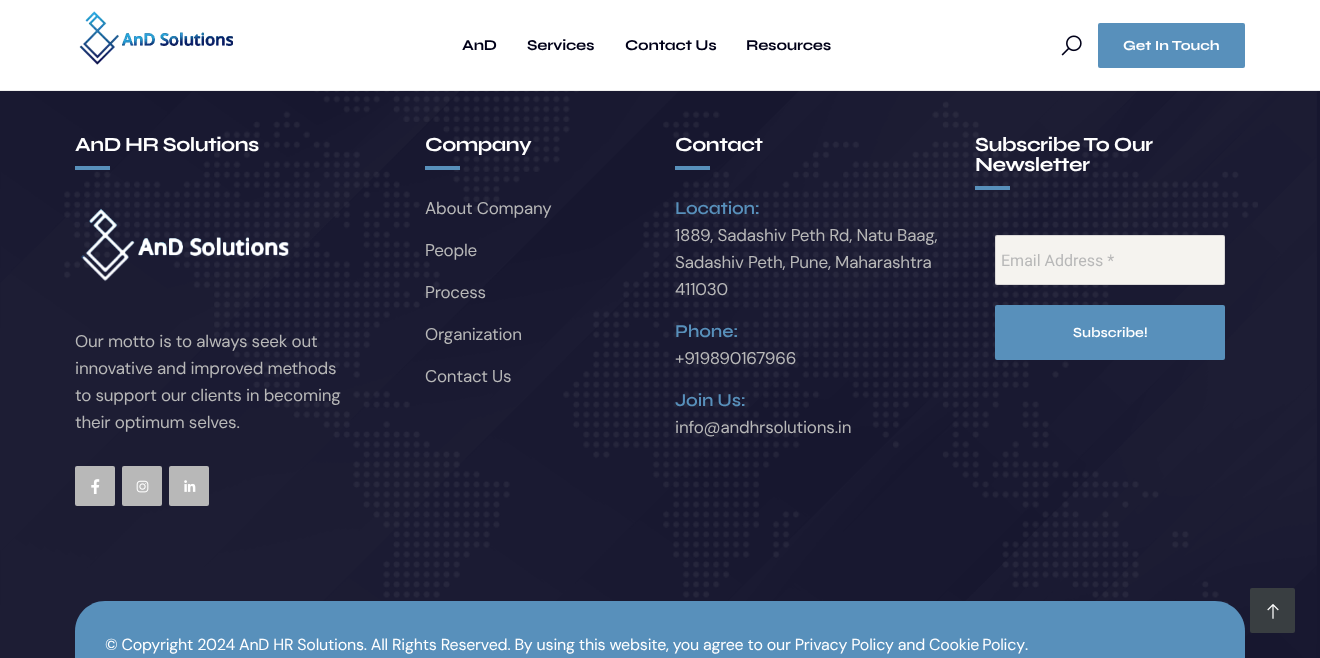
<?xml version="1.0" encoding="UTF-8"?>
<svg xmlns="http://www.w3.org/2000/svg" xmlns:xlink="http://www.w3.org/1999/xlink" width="1320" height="658">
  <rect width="100%" height="100%" fill="#17172f" />
  <rect y="90" width="1320" height="1" fill="#eeeeee" />
  <rect width="1320" height="90" fill="#ffffff" />
  <image x="79" y="11" width="154" height="54" xlink:href="image1.png" />
  <image x="1061" y="35" width="21" height="21" xlink:href="image2.png" />
  <rect x="1098" y="23" width="147" height="45" rx="2" fill="#5890bb" />
  <image x="0" y="91" width="1317" height="567" xlink:href="image3.png" />
  <image x="64" y="91" width="1194" height="513" xlink:href="image4.png" />
  <rect x="75" y="166" width="35" height="4" fill="#5890bb" />
  <image x="81" y="208" width="208" height="74" xlink:href="image5.png" />
  <rect x="75" y="466" width="40" height="40" rx="2" fill="#b8b8b8" />
  <image x="91" y="479" width="9" height="15" xlink:href="image6.png" />
  <rect x="122" y="466" width="40" height="40" rx="2" fill="#b8b8b8" />
  <image x="136" y="480" width="13" height="13" xlink:href="image7.png" />
  <rect x="169" y="466" width="40" height="40" rx="2" fill="#b8b8b8" />
  <image x="184" y="480" width="12" height="12" xlink:href="image8.png" />
  <rect x="425" y="166" width="35" height="4" fill="#5890bb" />
  <rect x="675" y="166" width="35" height="4" fill="#5890bb" />
  <rect x="975" y="186" width="35" height="4" fill="#5890bb" />
  <rect x="995" y="235" width="230" height="50" rx="2" fill="#f5f3ef" />
  <rect x="995.5" y="235.5" width="229" height="49" rx="1.5" fill="none" stroke="#17172f" stroke-opacity="0.12" />
  <rect x="995" y="305" width="230" height="55" rx="2" fill="#5890bb" />
  <path d="M 105 601 h 1110 c 16.5 0 30 13.5 30 30 v 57 h -1170 v -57 c 0 -16.5 13.5 -30 30 -30 z" fill="#5890bb" />
  <rect x="1250" y="588" width="45" height="45" rx="2" fill="#393e41" />
  <image x="1267" y="604" width="12" height="15" xlink:href="image9.png" />
  <text x="462" y="50" style="font-family: Syne; font-size: 15px; font-weight: bold; letter-spacing: -0.2px; fill: #000018">AnD</text>
  <text x="527" y="50" style="font-family: Syne; font-size: 15px; font-weight: bold; letter-spacing: -0.2px; fill: #000018">Services</text>
  <text x="625" y="50" style="font-family: Syne; font-size: 15px; font-weight: bold; letter-spacing: -0.2px; fill: #000018">Contact Us</text>
  <text x="746" y="50" style="font-family: Syne; font-size: 15px; font-weight: bold; letter-spacing: -0.2px; fill: #000018">Resources</text>
  <text x="1123" y="50" style="font-family: Syne; font-size: 14px; font-weight: bold; fill: #ffffff">Get In Touch</text>
  <text x="75" y="151" style="font-family: Syne; font-size: 20px; font-weight: bold; letter-spacing: -0.5px; fill: #ffffff">AnD HR Solutions</text>
  <text x="75" y="347" style="font-family: DM Sans; font-size: 17px; letter-spacing: -0.2px; fill: #b8b8b8">Our motto is to always seek out</text>
  <text x="75" y="374" style="font-family: DM Sans; font-size: 17px; letter-spacing: -0.2px; fill: #b8b8b8">innovative and improved methods</text>
  <text x="75" y="401" style="font-family: DM Sans; font-size: 17px; letter-spacing: -0.2px; fill: #b8b8b8">to support our clients in becoming</text>
  <text x="75" y="428" style="font-family: DM Sans; font-size: 17px; letter-spacing: -0.2px; fill: #b8b8b8">their optimum selves.</text>
  <text x="425" y="151" style="font-family: Syne; font-size: 20px; font-weight: bold; letter-spacing: -0.5px; fill: #ffffff">Company</text>
  <text x="425" y="214" style="font-family: DM Sans; font-size: 17px; letter-spacing: -0.2px; fill: #b8b8b8">About Company</text>
  <text x="425" y="256" style="font-family: DM Sans; font-size: 17px; letter-spacing: -0.2px; fill: #b8b8b8">People</text>
  <text x="425" y="298" style="font-family: DM Sans; font-size: 17px; letter-spacing: -0.2px; fill: #b8b8b8">Process</text>
  <text x="425" y="340" style="font-family: DM Sans; font-size: 17px; letter-spacing: -0.2px; fill: #b8b8b8">Organization</text>
  <text x="425" y="382" style="font-family: DM Sans; font-size: 17px; letter-spacing: -0.2px; fill: #b8b8b8">Contact Us</text>
  <text x="675" y="151" style="font-family: Syne; font-size: 20px; font-weight: bold; letter-spacing: -0.5px; fill: #ffffff">Contact</text>
  <text x="675" y="214" style="font-family: Syne; font-size: 18px; font-weight: 600; letter-spacing: -0.2px; fill: #5890bb">Location:</text>
  <text x="675" y="241" style="font-family: DM Sans; font-size: 17px; letter-spacing: -0.2px; fill: #b8b8b8">1889, Sadashiv Peth Rd, Natu Baag,</text>
  <text x="675" y="268" style="font-family: DM Sans; font-size: 17px; letter-spacing: -0.2px; fill: #b8b8b8">Sadashiv Peth, Pune, Maharashtra</text>
  <text x="675" y="295" style="font-family: DM Sans; font-size: 17px; letter-spacing: -0.2px; fill: #b8b8b8">411030</text>
  <text x="675" y="337" style="font-family: Syne; font-size: 18px; font-weight: 600; letter-spacing: -0.2px; fill: #5890bb">Phone:</text>
  <text x="675" y="364" style="font-family: DM Sans; font-size: 17px; letter-spacing: -0.2px; fill: #b8b8b8">+919890167966</text>
  <text x="675" y="406" style="font-family: Syne; font-size: 18px; font-weight: 600; letter-spacing: -0.2px; fill: #5890bb">Join Us:</text>
  <text x="675" y="433" style="font-family: DM Sans; font-size: 17px; letter-spacing: -0.2px; fill: #b8b8b8">info@andhrsolutions.in</text>
  <text x="975" y="151" style="font-family: Syne; font-size: 20px; font-weight: bold; letter-spacing: -0.5px; fill: #ffffff">Subscribe To Our</text>
  <text x="975" y="171" style="font-family: Syne; font-size: 20px; font-weight: bold; letter-spacing: -0.5px; fill: #ffffff">Newsletter</text>
  <text x="1001" y="266" style="font-family: Roboto; font-size: 16px; fill: #b8b8b8">Email Address *</text>
  <text x="1073" y="337" style="font-family: Syne; font-size: 14px; font-weight: 600; fill: #ffffff">Subscribe!</text>
  <text x="105" y="650" style="font-family: DM Sans; font-size: 16px; letter-spacing: -0.2px; fill: #ffffff">© Copyright 2024 AnD HR Solutions. All Rights Reserved. By using this website, you agree to our Privacy Policy and</text>
  <text x="929" y="650" word-spacing="-1" style="font-family: DM Sans; font-size: 16px; letter-spacing: -0.2px; fill: #ffffff">Cookie Policy</text>
  <text x="1025" y="650" style="font-family: DM Sans; font-size: 16px; letter-spacing: -0.2px; fill: #ffffff">.</text>
</svg>
